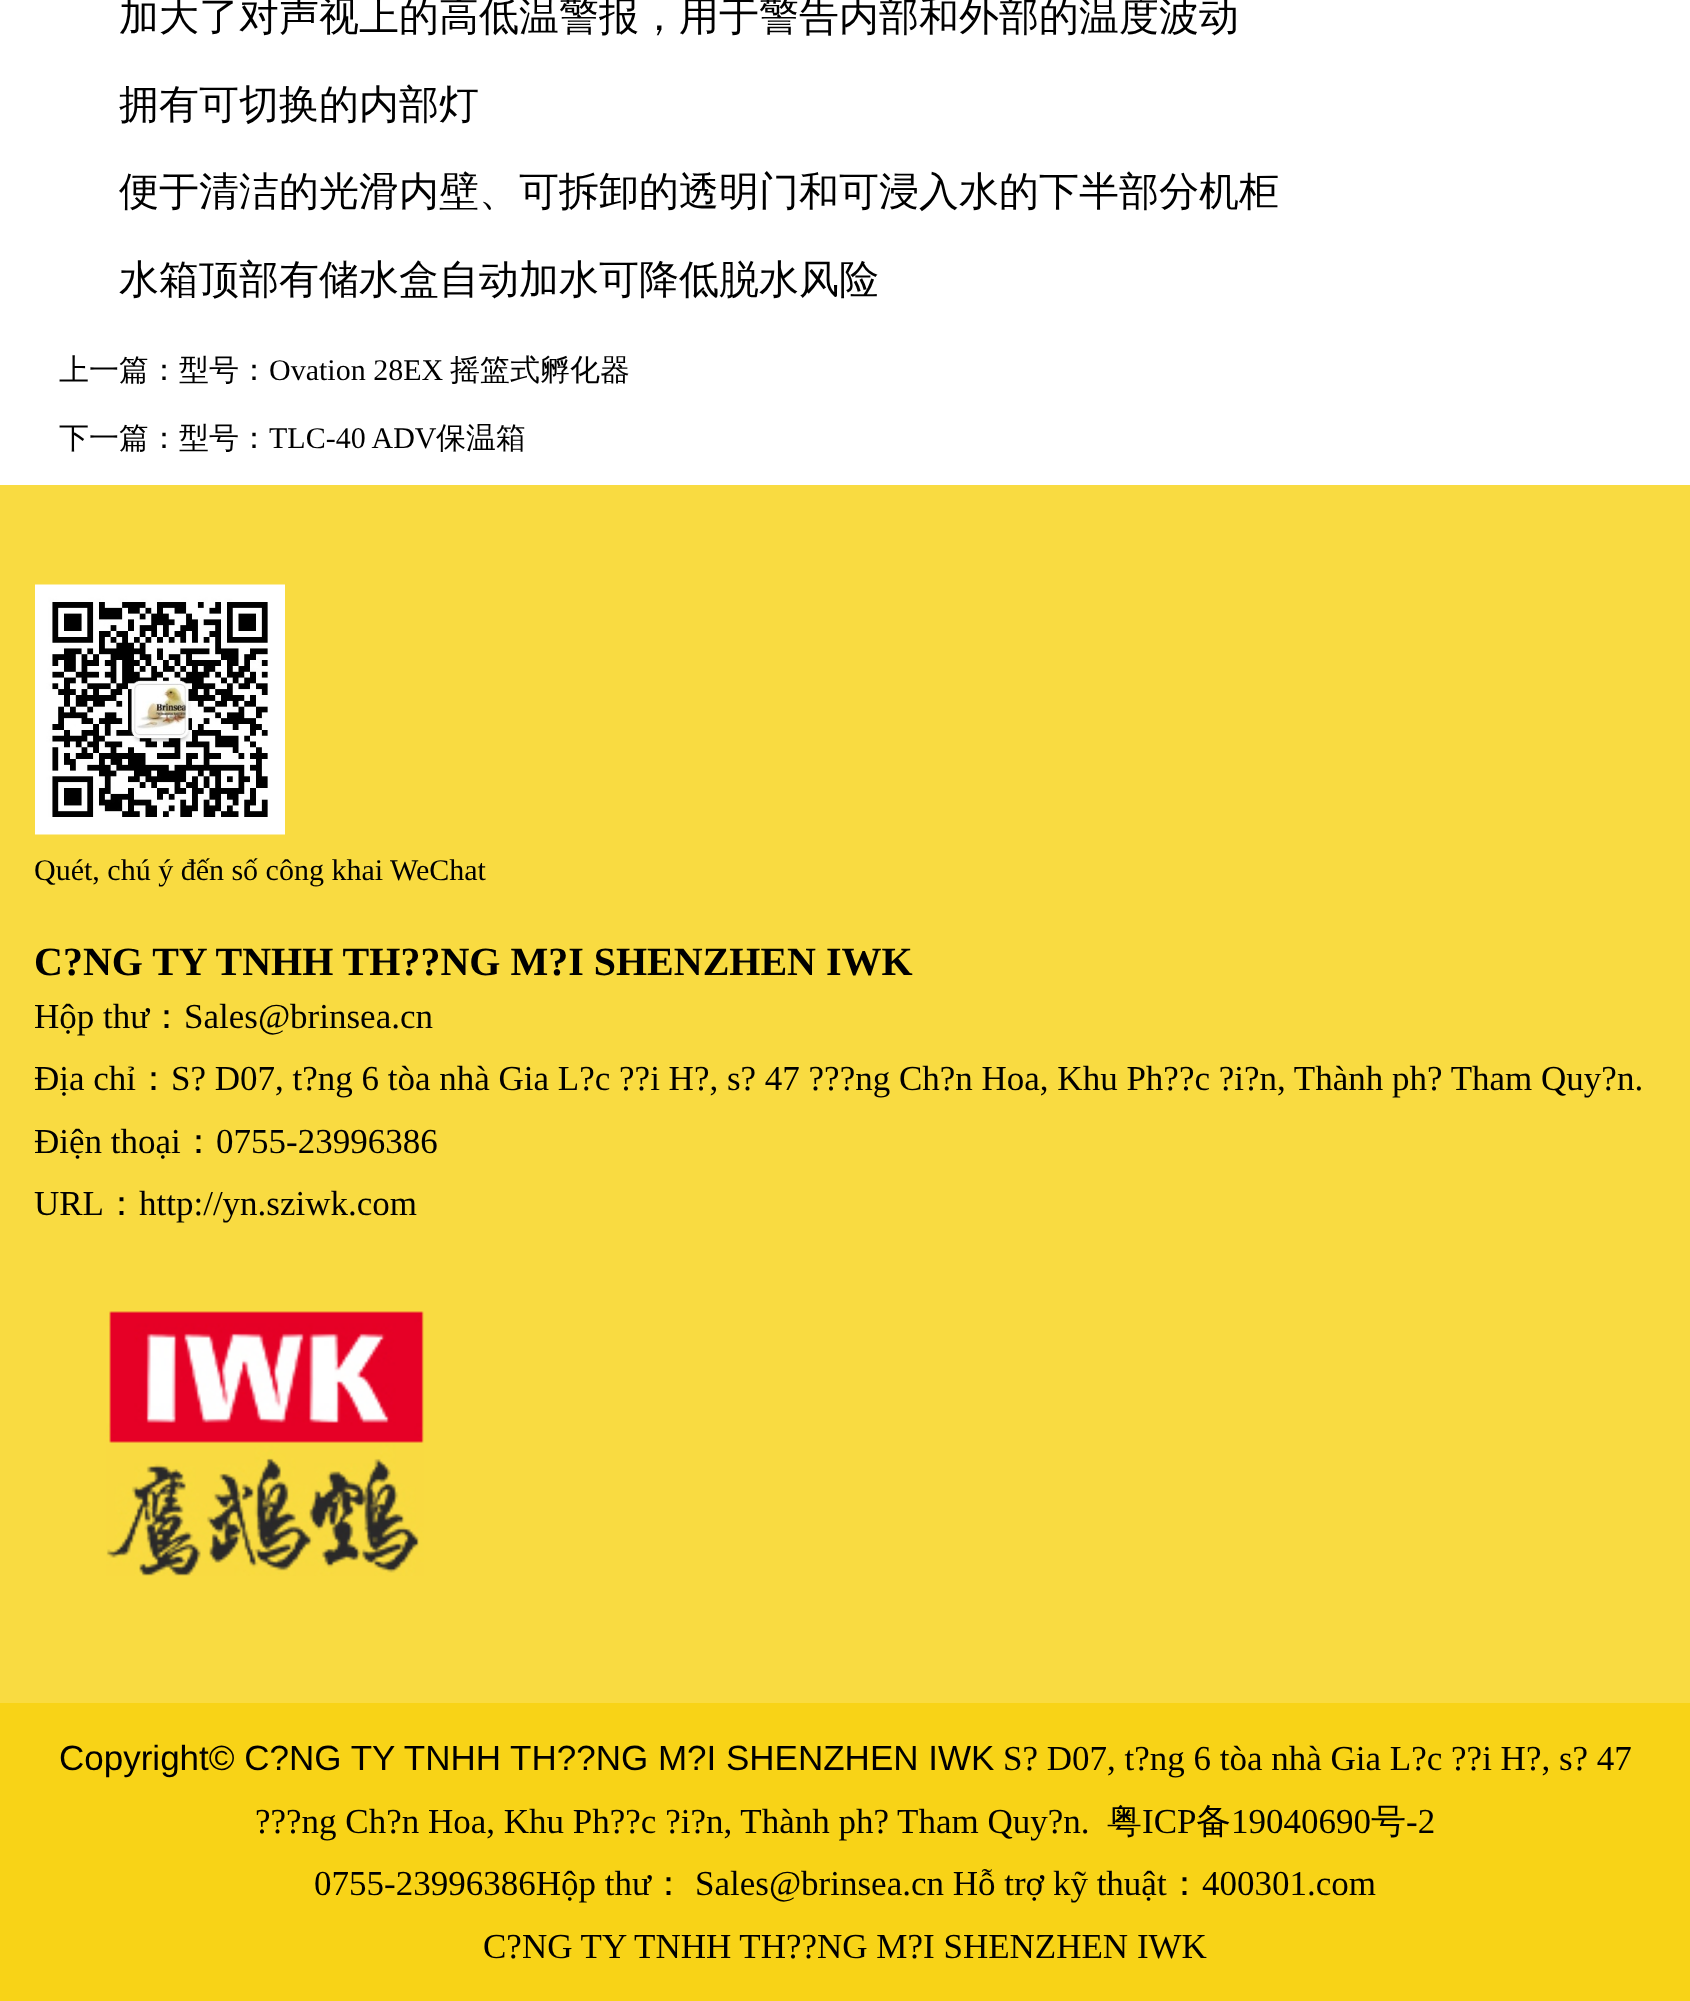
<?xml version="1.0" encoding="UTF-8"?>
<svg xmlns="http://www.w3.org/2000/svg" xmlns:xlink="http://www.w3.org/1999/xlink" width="1690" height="2001">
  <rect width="100%" height="100%" fill="#ffffff" />
  <rect y="485" width="1690" height="1218" fill="#f9db41" />
  <image x="35" y="584" width="250" height="251" xlink:href="image1.png" />
  <image x="106" y="1311" width="318" height="265" xlink:href="image2.png" />
  <rect y="1703" width="1690" height="298" fill="#f8d317" />
  <text x="119" y="30" style="font-family: WenQuanYi Zen Hei; font-size: 40px; font-weight: 500; fill: #000000">加大了对声视上的高低温警报，用于警告内部和外部的温度波动</text>
  <text x="119" y="118" style="font-family: WenQuanYi Zen Hei; font-size: 40px; font-weight: 500; fill: #000000">拥有可切换的内部灯</text>
  <text x="119" y="205" style="font-family: WenQuanYi Zen Hei; font-size: 40px; font-weight: 500; fill: #000000">便于清洁的光滑内壁、可拆卸的透明门和可浸入水的下半部分机柜</text>
  <text x="119" y="293" style="font-family: WenQuanYi Zen Hei; font-size: 40px; font-weight: 500; fill: #000000">水箱顶部有储水盒自动加水可降低脱水风险</text>
  <text x="59" y="380" style="font-family: WenQuanYi Zen Hei; font-size: 30px; font-weight: 500; fill: #000000">上一篇：型号：</text>
  <text x="269" y="380" style="font-family: Liberation Serif; font-size: 30px; fill: #000000">Ovation 28EX</text>
  <text x="450" y="380" style="font-family: WenQuanYi Zen Hei; font-size: 30px; font-weight: 500; fill: #000000">摇篮式孵化器</text>
  <text x="59" y="448" style="font-family: WenQuanYi Zen Hei; font-size: 30px; font-weight: 500; fill: #000000">下一篇：型号：</text>
  <text x="269" y="448" style="font-family: Liberation Serif; font-size: 30px; fill: #000000">TLC-40 ADV</text>
  <text x="436" y="448" style="font-family: WenQuanYi Zen Hei; font-size: 30px; font-weight: 500; fill: #000000">保温箱</text>
  <text x="34" y="880" style="font-family: Liberation Serif; font-size: 30px; fill: #000000">Quét, chú ý đến số công khai WeChat</text>
  <text x="34" y="975" style="font-family: Liberation Serif; font-size: 40px; font-weight: bold; fill: #000000">C?NG TY TNHH TH??NG M?I SHENZHEN IWK</text>
  <text x="34" y="1028" style="font-family: Liberation Serif; font-size: 35px; fill: #000000">Hộp thư</text>
  <text x="149" y="1028" style="font-family: WenQuanYi Zen Hei; font-size: 35px; font-weight: 500; fill: #000000">：</text>
  <text x="184" y="1028" style="font-family: Liberation Serif; font-size: 35px; fill: #000000">Sales@brinsea.cn</text>
  <text x="34" y="1090" style="font-family: Liberation Serif; font-size: 35px; fill: #000000">Địa chỉ</text>
  <text x="136" y="1090" style="font-family: WenQuanYi Zen Hei; font-size: 35px; font-weight: 500; fill: #000000">：</text>
  <text x="171" y="1090" style="font-family: Liberation Serif; font-size: 35px; fill: #000000">S? D07, t?ng 6 tòa nhà Gia L?c ??i H?, s? 47 ???ng Ch?n Hoa, Khu Ph??c ?i?n, Thành ph? Tham Quy?n.</text>
  <text x="34" y="1153" style="font-family: Liberation Serif; font-size: 35px; fill: #000000">Điện thoại</text>
  <text x="181" y="1153" style="font-family: WenQuanYi Zen Hei; font-size: 35px; font-weight: 500; fill: #000000">：</text>
  <text x="216" y="1153" style="font-family: Liberation Serif; font-size: 35px; fill: #000000">0755-23996386</text>
  <text x="34" y="1215" style="font-family: Liberation Serif; font-size: 35px; fill: #000000">URL</text>
  <text x="104" y="1215" style="font-family: WenQuanYi Zen Hei; font-size: 35px; font-weight: 500; fill: #000000">：</text>
  <text x="139" y="1215" style="font-family: Liberation Serif; font-size: 35px; fill: #000000">http://yn.sziwk.com</text>
  <text x="59" y="1770" style="font-family: Liberation Sans; font-size: 35px; fill: #000000">Copyright© C?NG TY TNHH TH??NG M?I SHENZHEN IWK</text>
  <text x="1003" y="1770" style="font-family: Liberation Serif; font-size: 35px; fill: #000000">S? D07, t?ng 6 tòa nhà Gia L?c ??i H?, s? 47</text>
  <text x="255" y="1833" style="font-family: Liberation Serif; font-size: 35px; fill: #000000">???ng Ch?n Hoa, Khu Ph??c ?i?n, Thành ph? Tham Quy?n.</text>
  <text x="1107" y="1833" style="font-family: WenQuanYi Zen Hei; font-size: 35px; font-weight: 500; fill: #000000">粤</text>
  <text x="1142" y="1833" style="font-family: Liberation Serif; font-size: 35px; fill: #000000">ICP</text>
  <text x="1196" y="1833" style="font-family: WenQuanYi Zen Hei; font-size: 35px; font-weight: 500; fill: #000000">备</text>
  <text x="1231" y="1833" style="font-family: Liberation Serif; font-size: 35px; fill: #000000">19040690</text>
  <text x="1371" y="1833" style="font-family: WenQuanYi Zen Hei; font-size: 35px; font-weight: 500; fill: #000000">号</text>
  <text x="1406" y="1833" style="font-family: Liberation Serif; font-size: 35px; fill: #000000">-2</text>
  <text x="314" y="1895" style="font-family: Liberation Serif; font-size: 35px; fill: #000000">0755-23996386Hộp thư</text>
  <text x="651" y="1895" style="font-family: WenQuanYi Zen Hei; font-size: 35px; font-weight: 500; fill: #000000">：</text>
  <text x="695" y="1895" style="font-family: Liberation Serif; font-size: 35px; fill: #000000">Sales@brinsea.cn Hỗ trợ kỹ thuật</text>
  <text x="1167" y="1895" style="font-family: WenQuanYi Zen Hei; font-size: 35px; font-weight: 500; fill: #000000">：</text>
  <text x="1202" y="1895" style="font-family: Liberation Serif; font-size: 35px; fill: #000000">400301.com</text>
  <text x="483" y="1958" style="font-family: Liberation Serif; font-size: 35px; fill: #000000">C?NG TY TNHH TH??NG M?I SHENZHEN IWK</text>
</svg>
